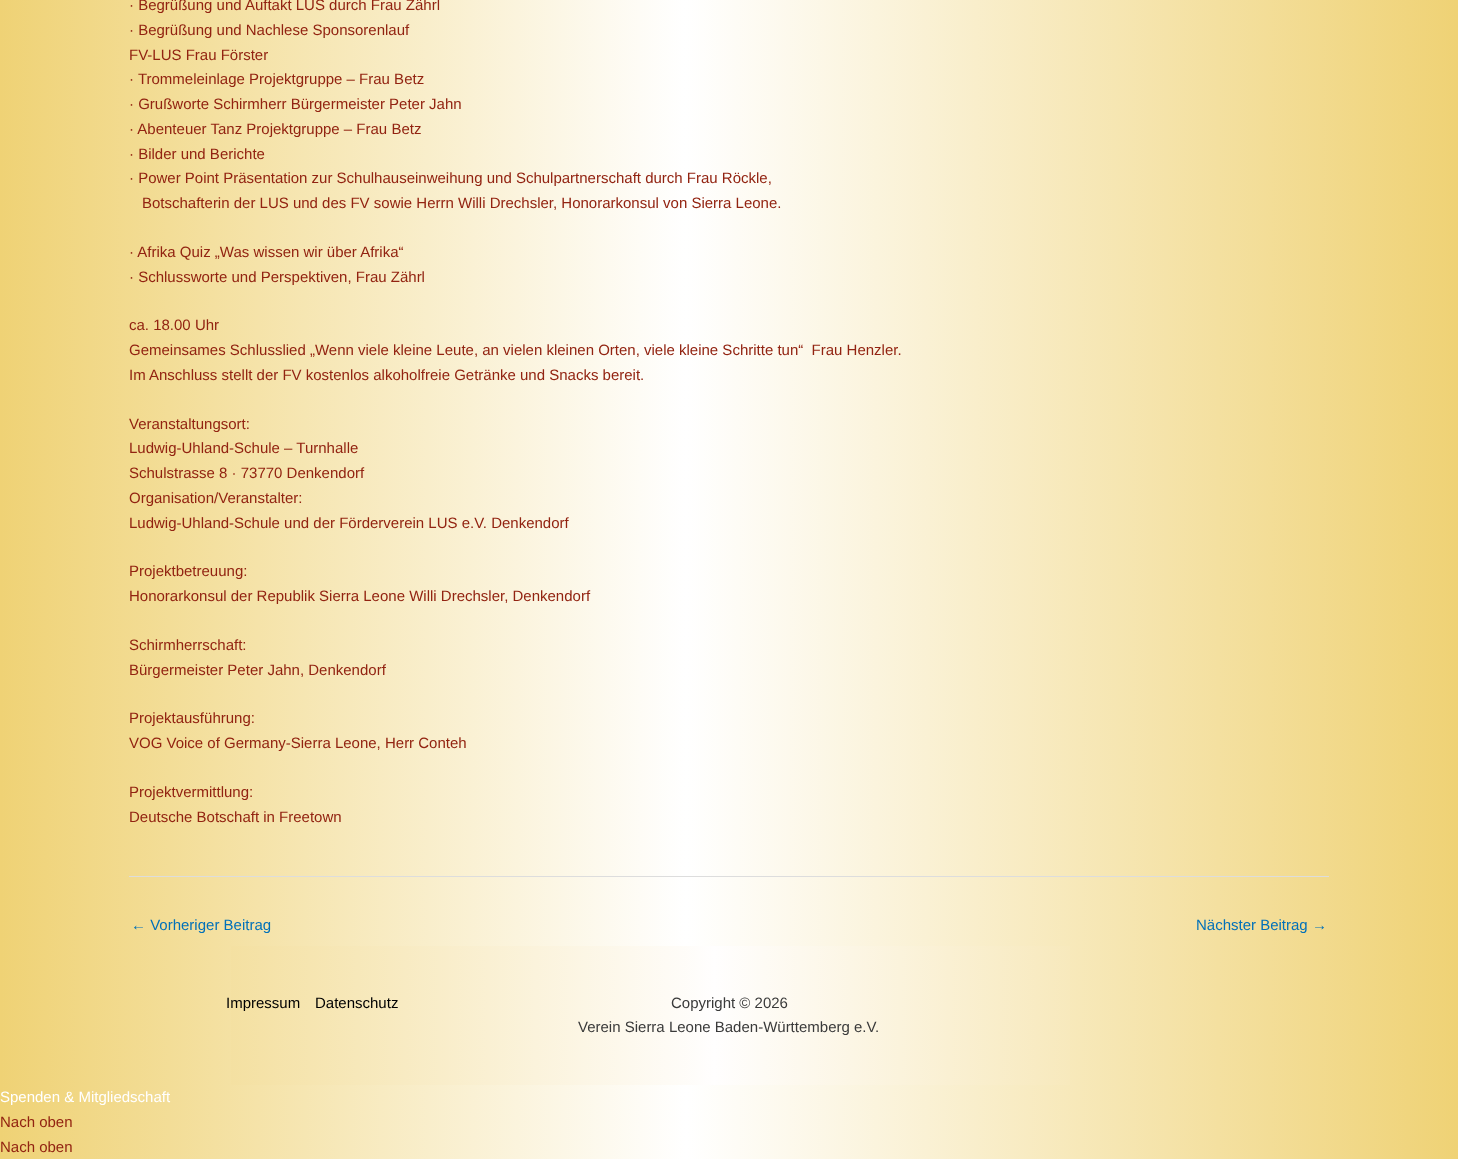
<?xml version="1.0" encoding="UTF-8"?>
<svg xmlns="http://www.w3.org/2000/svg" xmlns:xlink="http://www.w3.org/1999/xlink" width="1458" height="1159">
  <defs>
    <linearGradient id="g1" gradientUnits="userSpaceOnUse" x1="0" y1="92" x2="1458" y2="91"><stop offset="0" stop-color="#efd275" /><stop offset="0.47" stop-color="#ffffff" /><stop offset="1" stop-color="#efd275" /></linearGradient>
    <linearGradient id="g2" gradientUnits="userSpaceOnUse" x1="0" y1="1016" x2="1458" y2="1016"><stop offset="0" stop-color="#efd275" /><stop offset="0.49" stop-color="#fffefe" /><stop offset="1" stop-color="#efd275" /></linearGradient>
  </defs>
  <rect width="100%" height="100%" fill="#ffffff" />
  <rect width="1458" height="1159" fill="url(#g1)" />
  <rect x="129" y="876" width="1200" height="1" fill="#dddddd" />
  <rect x="231" y="946" width="839" height="139" fill="url(#g2)" />
  <text x="129" y="10" style="font-family: Liberation Sans; font-size: 15px; fill: #922311">· Begrüßung und Auftakt LUS durch Frau Zährl</text>
  <text x="129" y="35" style="font-family: Liberation Sans; font-size: 15px; fill: #922311">· Begrüßung und Nachlese Sponsorenlauf</text>
  <text x="129" y="60" style="font-family: Liberation Sans; font-size: 15px; fill: #922311">FV-LUS Frau Förster</text>
  <text x="129" y="84" style="font-family: Liberation Sans; font-size: 15px; fill: #922311">· Trommeleinlage Projektgruppe – Frau Betz</text>
  <text x="129" y="109" style="font-family: Liberation Sans; font-size: 15px; fill: #922311">· Grußworte Schirmherr Bürgermeister Peter Jahn</text>
  <text x="129" y="134" style="font-family: Liberation Sans; font-size: 15px; fill: #922311">· Abenteuer Tanz Projektgruppe – Frau Betz</text>
  <text x="129" y="159" style="font-family: Liberation Sans; font-size: 15px; fill: #922311">· Bilder und Berichte</text>
  <text x="129" y="183" style="font-family: Liberation Sans; font-size: 15px; fill: #922311">· Power Point Präsentation zur Schulhauseinweihung und Schulpartnerschaft durch Frau Röckle,</text>
  <text x="142" y="208" style="font-family: Liberation Sans; font-size: 15px; fill: #922311">Botschafterin der LUS und des FV sowie Herrn Willi Drechsler, Honorarkonsul von Sierra Leone.</text>
  <text x="129" y="257" style="font-family: Liberation Sans; font-size: 15px; fill: #922311">· Afrika Quiz „Was wissen wir über Afrika“</text>
  <text x="129" y="282" style="font-family: Liberation Sans; font-size: 15px; fill: #922311">· Schlussworte und Perspektiven, Frau Zährl</text>
  <text x="129" y="330" style="font-family: Liberation Sans; font-size: 15px; fill: #922311">ca. 18.00 Uhr</text>
  <text x="129" y="355" style="font-family: Liberation Sans; font-size: 15px; fill: #922311" xml:space="preserve">Gemeinsames Schlusslied „Wenn viele kleine Leute, an vielen kleinen Orten, viele kleine Schritte tun“  Frau Henzler.</text>
  <text x="129" y="380" style="font-family: Liberation Sans; font-size: 15px; fill: #922311">Im Anschluss stellt der FV kostenlos alkoholfreie Getränke und Snacks bereit.</text>
  <text x="129" y="429" style="font-family: Liberation Sans; font-size: 15px; fill: #922311">Veranstaltungsort:</text>
  <text x="129" y="453" style="font-family: Liberation Sans; font-size: 15px; fill: #922311">Ludwig-Uhland-Schule – Turnhalle</text>
  <text x="129" y="478" style="font-family: Liberation Sans; font-size: 15px; fill: #922311">Schulstrasse 8 · 73770 Denkendorf</text>
  <text x="129" y="503" style="font-family: Liberation Sans; font-size: 15px; fill: #922311">Organisation/Veranstalter:</text>
  <text x="129" y="528" style="font-family: Liberation Sans; font-size: 15px; fill: #922311">Ludwig-Uhland-Schule und der Förderverein LUS e.V. Denkendorf</text>
  <text x="129" y="576" style="font-family: Liberation Sans; font-size: 15px; fill: #922311">Projektbetreuung:</text>
  <text x="129" y="601" style="font-family: Liberation Sans; font-size: 15px; fill: #922311">Honorarkonsul der Republik Sierra Leone Willi Drechsler, Denkendorf</text>
  <text x="129" y="650" style="font-family: Liberation Sans; font-size: 15px; fill: #922311">Schirmherrschaft:</text>
  <text x="129" y="675" style="font-family: Liberation Sans; font-size: 15px; fill: #922311">Bürgermeister Peter Jahn, Denkendorf</text>
  <text x="129" y="723" style="font-family: Liberation Sans; font-size: 15px; fill: #922311">Projektausführung:</text>
  <text x="129" y="748" style="font-family: Liberation Sans; font-size: 15px; fill: #922311">VOG Voice of Germany-Sierra Leone, Herr Conteh</text>
  <text x="129" y="797" style="font-family: Liberation Sans; font-size: 15px; fill: #922311">Projektvermittlung:</text>
  <text x="129" y="822" style="font-family: Liberation Sans; font-size: 15px; fill: #922311">Deutsche Botschaft in Freetown</text>
  <text x="131" y="930" style="font-family: Liberation Sans; font-size: 15px; fill: #0170b9">← Vorheriger Beitrag</text>
  <text x="1196" y="930" style="font-family: Liberation Sans; font-size: 15px; fill: #0170b9">Nächster Beitrag →</text>
  <text x="226" y="1008" style="font-family: Liberation Sans; font-size: 15px; fill: #000000">Impressum</text>
  <text x="315" y="1008" style="font-family: Liberation Sans; font-size: 15px; fill: #000000">Datenschutz</text>
  <text x="671" y="1008" style="font-family: Liberation Sans; font-size: 15px; fill: #3a3a3a">Copyright © 2026</text>
  <text x="578" y="1032" style="font-family: Liberation Sans; font-size: 15px; fill: #3a3a3a">Verein Sierra Leone Baden-Württemberg e.V.</text>
  <text x="0" y="1102" style="font-family: Liberation Sans; font-size: 15px; fill: #ffffff">Spenden &amp; Mitgliedschaft</text>
  <text x="0" y="1127" style="font-family: Liberation Sans; font-size: 15px; fill: #922311">Nach oben</text>
  <text x="0" y="1152" style="font-family: Liberation Sans; font-size: 15px; fill: #922311">Nach oben</text>
</svg>
